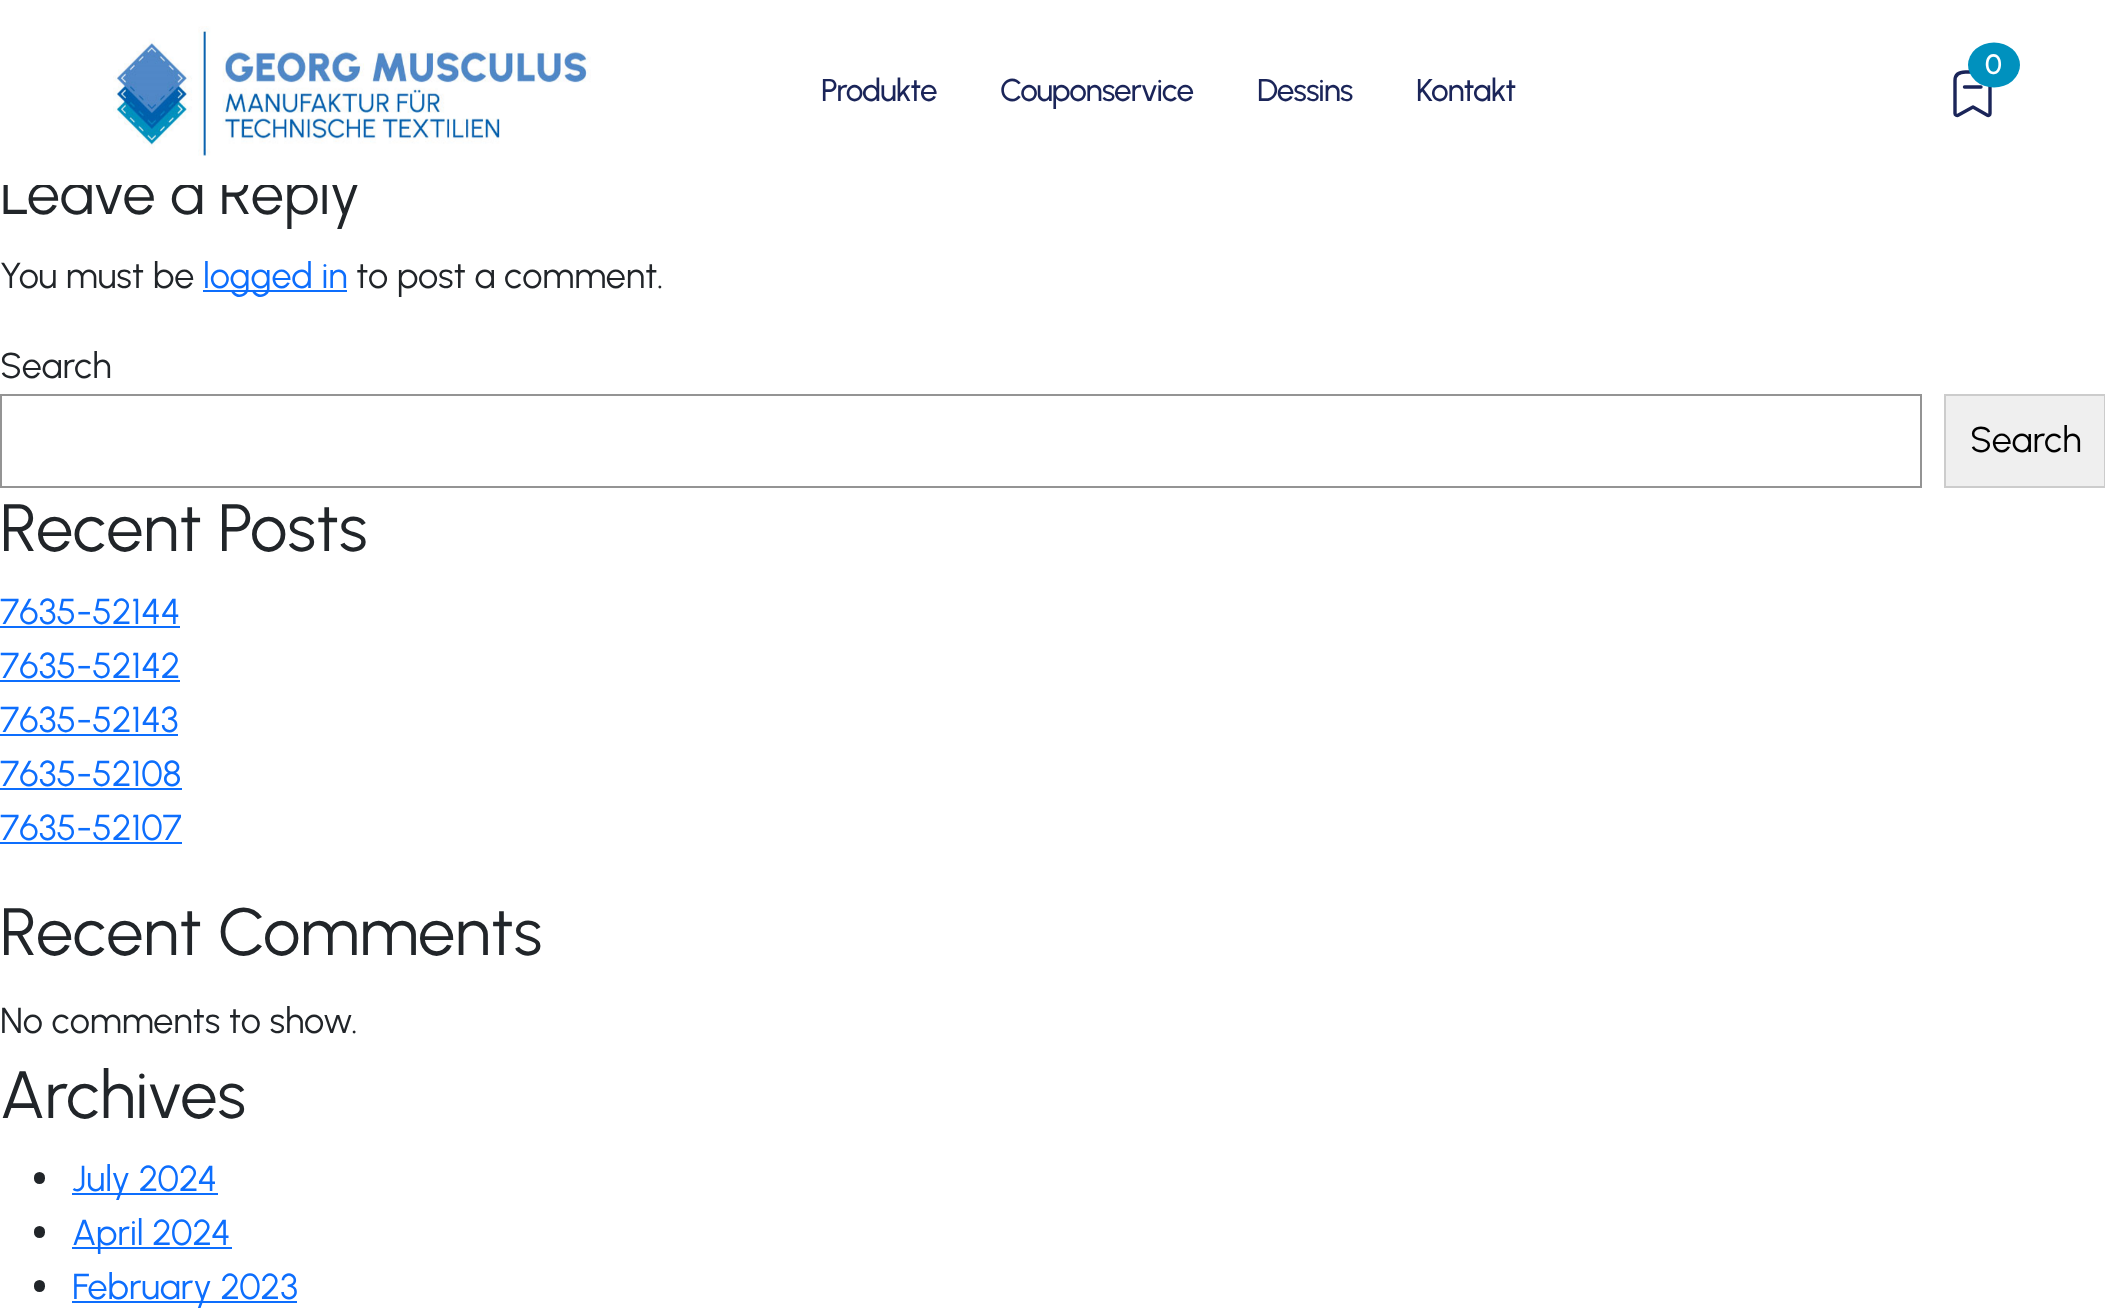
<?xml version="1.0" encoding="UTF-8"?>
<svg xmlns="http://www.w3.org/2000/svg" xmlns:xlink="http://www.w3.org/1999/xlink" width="2105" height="1309">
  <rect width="100%" height="100%" fill="#ffffff" />
  <image x="113" y="26" width="478" height="130" xlink:href="image1.png" />
  <path d="M 1964.5 87 h 16.5 m 9 -6.5 c 0 -6 -4 -8.5 -10 -8.5 h -14.5 c -6 0 -10.5 2.5 -10.5 8.5 v 33 c 0 1.5 2 2.5 3.5 1.5 l 14.5 -8 l 14 8 c 1.5 1 3 0 3 -1.5 z" fill="none" stroke="#1b2559" stroke-width="3.4" stroke-linecap="round" stroke-linejoin="round" />
  <ellipse cx="1994" cy="65" rx="26" ry="22.5" fill="#0091be" />
  <rect x="203" y="290" width="144" height="2" fill="#0d6efd" />
  <rect x="1" y="395" width="1920" height="92" fill="none" stroke="#949494" stroke-width="2" />
  <rect x="1945" y="395" width="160" height="92" fill="#efefef" stroke="#cccccc" stroke-width="2" />
  <rect y="626" width="180" height="2" fill="#0d6efd" />
  <rect y="680" width="180" height="2" fill="#0d6efd" />
  <rect y="734" width="178" height="2" fill="#0d6efd" />
  <rect y="788" width="182" height="2" fill="#0d6efd" />
  <rect y="842" width="182" height="2" fill="#0d6efd" />
  <rect x="34" y="1172" width="11" height="12" rx="5.5" fill="#212529" />
  <rect x="72" y="1193" width="146" height="2" fill="#0d6efd" />
  <rect x="34" y="1226" width="11" height="12" rx="5.5" fill="#212529" />
  <rect x="72" y="1247" width="160" height="2" fill="#0d6efd" />
  <rect x="34" y="1280" width="11" height="12" rx="5.5" fill="#212529" />
  <rect x="72" y="1301" width="225" height="2" fill="#0d6efd" />
  <text x="1985" y="74" style="font-family: Urbanist; font-size: 27px; font-weight: bold; fill: #ffffff">0</text>
  <text x="821" y="101" style="font-family: Urbanist; font-size: 31.5px; font-weight: 500; letter-spacing: -1px; fill: #1b2559">Produkte</text>
  <text x="1000" y="101" style="font-family: Urbanist; font-size: 31.5px; font-weight: 500; letter-spacing: -1px; fill: #1b2559">Couponservice</text>
  <text x="1257" y="101" style="font-family: Urbanist; font-size: 31.5px; font-weight: 500; letter-spacing: -1px; fill: #1b2559">Dessins</text>
  <text x="1416" y="101" style="font-family: Urbanist; font-size: 31.5px; font-weight: 500; letter-spacing: -1px; fill: #1b2559">Kontakt</text>
  <text x="0" y="214" style="font-family: Urbanist; font-size: 59.5px; fill: #212529">Leave a Reply</text>
  <rect x="3" y="169" width="355" height="16" fill="#ffffff" />
  <text x="0" y="288" style="font-family: Urbanist; font-size: 36px; fill: #212529">You must be</text>
  <text x="203" y="288" style="font-family: Urbanist; font-size: 36px; fill: #0d6efd">logged in</text>
  <text x="356" y="288" style="font-family: Urbanist; font-size: 36px; fill: #212529">to post a comment.</text>
  <text x="0" y="378" style="font-family: Urbanist; font-size: 36px; fill: #212529">Search</text>
  <text x="1970" y="452" style="font-family: Urbanist; font-size: 36px; fill: #000000">Search</text>
  <text x="0" y="551" style="font-family: Urbanist; font-size: 66.75px; fill: #212529">Recent Posts</text>
  <text x="0" y="624" style="font-family: Urbanist; font-size: 36px; fill: #0d6efd">7635-52144</text>
  <text x="0" y="678" style="font-family: Urbanist; font-size: 36px; fill: #0d6efd">7635-52142</text>
  <text x="0" y="732" style="font-family: Urbanist; font-size: 36px; fill: #0d6efd">7635-52143</text>
  <text x="0" y="786" style="font-family: Urbanist; font-size: 36px; fill: #0d6efd">7635-52108</text>
  <text x="0" y="840" style="font-family: Urbanist; font-size: 36px; fill: #0d6efd">7635-52107</text>
  <text x="0" y="955" style="font-family: Urbanist; font-size: 66.75px; fill: #212529">Recent Comments</text>
  <text x="0" y="1033" style="font-family: Urbanist; font-size: 36px; fill: #212529">No comments to show.</text>
  <text x="0" y="1118" style="font-family: Urbanist; font-size: 66.75px; fill: #212529">Archives</text>
  <text x="72" y="1191" style="font-family: Urbanist; font-size: 36px; fill: #0d6efd">July 2024</text>
  <text x="72" y="1245" style="font-family: Urbanist; font-size: 36px; fill: #0d6efd">April 2024</text>
  <text x="72" y="1299" style="font-family: Urbanist; font-size: 36px; fill: #0d6efd">February 2023</text>
</svg>
